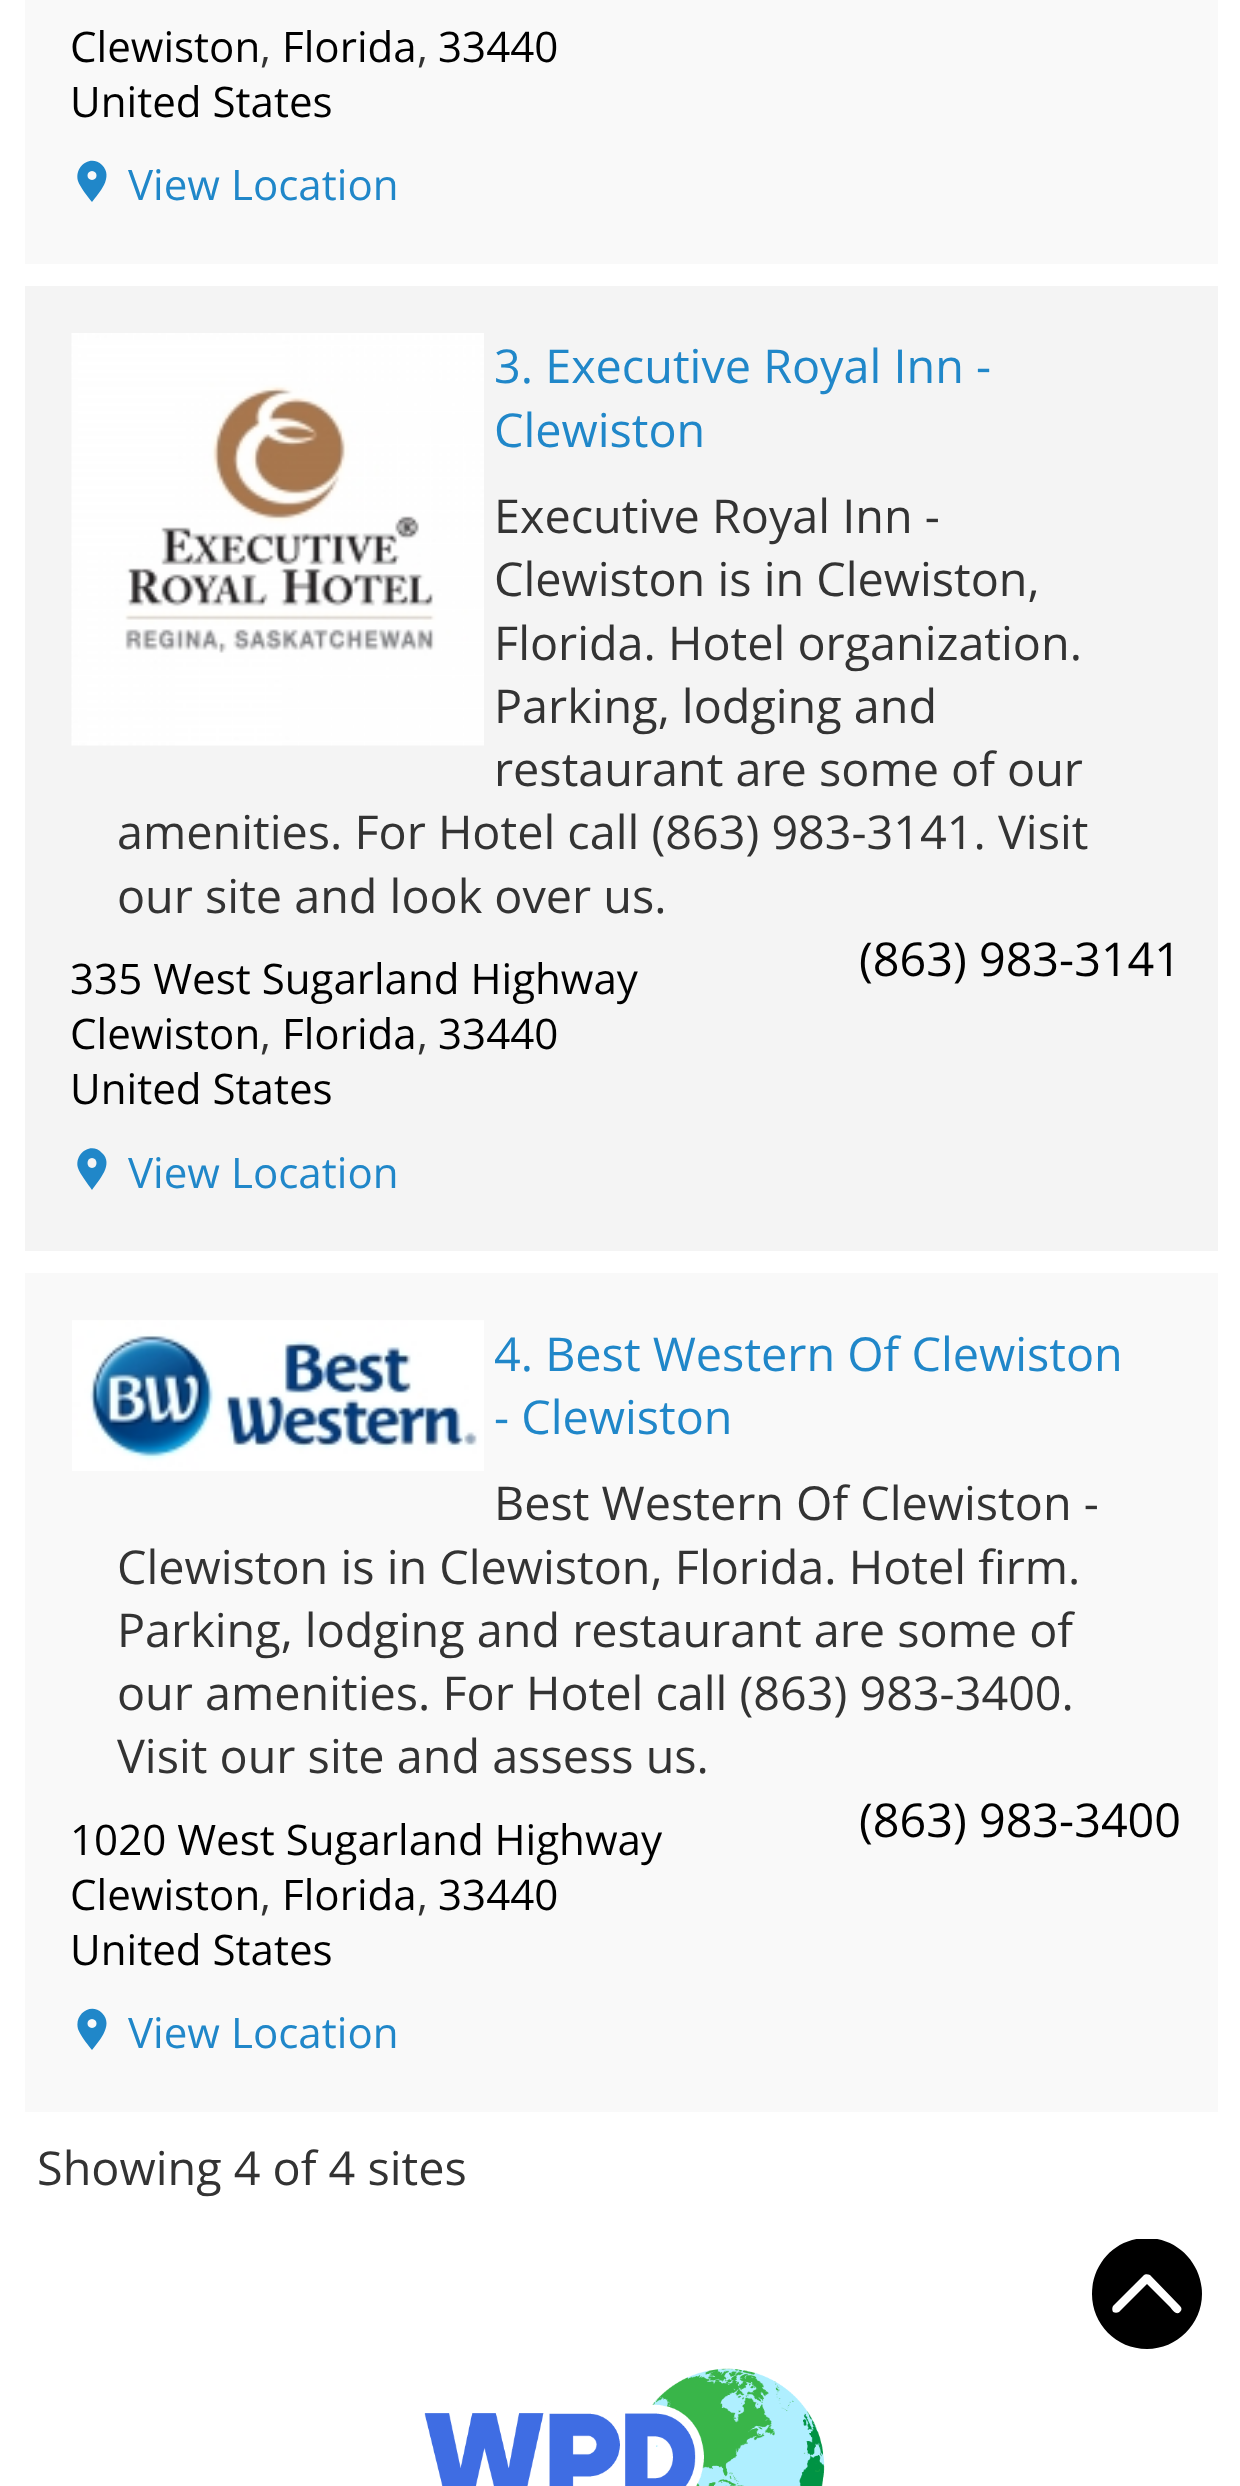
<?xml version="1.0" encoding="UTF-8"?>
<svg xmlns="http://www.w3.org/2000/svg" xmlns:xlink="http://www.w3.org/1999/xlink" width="1240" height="2486">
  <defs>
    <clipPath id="clip1"><rect x="1092" y="2239" width="110" height="110" /></clipPath>
  </defs>
  <rect width="100%" height="100%" fill="#ffffff" />
  <rect x="25" width="1193" height="264" fill="#f9f9f9" />
  <path d="M 102 165 c -11 -11 -28 1 -24 16 c 2 6 10 16 14 21 c 7 -9 22 -25 10 -37 z m -10 15 c -6 0 -6 -9 0 -9 c 6 0 6 9 0 9 z" fill="#2087c9" />
  <rect x="25" y="286" width="1193" height="965" fill="#f4f4f4" />
  <image x="71" y="333" width="413" height="413" xlink:href="image1.png" />
  <path d="M 102 1153 c -11 -12 -28 1 -24 15 c 2 6 10 16 14 22 c 7 -10 22 -26 10 -37 z m -10 15 c -6 0 -6 -10 0 -10 c 6 0 6 10 0 10 z" fill="#2087c9" />
  <rect x="25" y="1273" width="1193" height="839" fill="#f9f9f9" />
  <image x="72" y="1320" width="412" height="151" xlink:href="image2.png" />
  <path d="M 102 2013 c -11 -11 -28 1 -24 16 c 2 6 10 16 14 21 c 7 -9 22 -25 10 -37 z m -10 15 c -6 0 -6 -9 0 -9 c 6 0 6 9 0 9 z" fill="#2087c9" />
  <g clip-path="url(#clip1)">
    <path d="M 1147 2238 c -31 0 -55 25 -55 56 c 0 30 24 55 55 55 c 30 0 55 -25 55 -55 c 0 -31 -25 -56 -55 -56 z m 33 74 c -4 4 -8 -3 -10 -5 l -23 -23 l -28 28 c -2 1 -4 1 -6 0 c -1 -2 -1 -4 0 -6 l 31 -31 c 1 -1 4 -1 6 0 l 30 31 c 2 2 2 4 0 6 z" fill="#000000" />
  </g>
  <image x="424" y="2368" width="401" height="118" xlink:href="image3.png" />
  <text x="70" y="62" style="font-family: Open Sans; font-size: 42.1px; fill: #000000">Clewiston</text>
  <text x="260" y="62" style="font-family: Open Sans; font-size: 42.1px; fill: #333333">,</text>
  <text x="282" y="62" style="font-family: Open Sans; font-size: 42.1px; fill: #000000">Florida</text>
  <text x="417" y="62" style="font-family: Open Sans; font-size: 42.1px; fill: #333333">,</text>
  <text x="438" y="62" style="font-family: Open Sans; font-size: 42.1px; fill: #000000">33440</text>
  <text x="70" y="117" style="font-family: Open Sans; font-size: 42.1px; fill: #000000">United States</text>
  <text x="128" y="200" style="font-family: Open Sans; font-size: 42.1px; fill: #2087c9">View Location</text>
  <text x="494" y="383" style="font-family: Open Sans; font-size: 46.75px; fill: #2087c9">3. Executive Royal Inn -</text>
  <text x="494" y="447" style="font-family: Open Sans; font-size: 46.75px; fill: #2087c9">Clewiston</text>
  <text x="494" y="533" style="font-family: Open Sans; font-size: 46.75px; fill: #333333">Executive Royal Inn -</text>
  <text x="494" y="596" style="font-family: Open Sans; font-size: 46.75px; fill: #333333">Clewiston is in Clewiston,</text>
  <text x="494" y="660" style="font-family: Open Sans; font-size: 46.75px; fill: #333333">Florida. Hotel organization.</text>
  <text x="494" y="723" style="font-family: Open Sans; font-size: 46.75px; fill: #333333">Parking, lodging and</text>
  <text x="494" y="786" style="font-family: Open Sans; font-size: 46.75px; fill: #333333">restaurant are some of our</text>
  <text x="117" y="849" style="font-family: Open Sans; font-size: 46.75px; fill: #333333">amenities. For Hotel call (863) 983-3141. Visit</text>
  <text x="117" y="913" style="font-family: Open Sans; font-size: 46.75px; fill: #333333">our site and look over us.</text>
  <text x="70" y="994" style="font-family: Open Sans; font-size: 42.1px; fill: #000000">335 West Sugarland Highway</text>
  <text x="70" y="1049" style="font-family: Open Sans; font-size: 42.1px; fill: #000000">Clewiston</text>
  <text x="260" y="1049" style="font-family: Open Sans; font-size: 42.1px; fill: #333333">,</text>
  <text x="282" y="1049" style="font-family: Open Sans; font-size: 42.1px; fill: #000000">Florida</text>
  <text x="417" y="1049" style="font-family: Open Sans; font-size: 42.1px; fill: #333333">,</text>
  <text x="438" y="1049" style="font-family: Open Sans; font-size: 42.1px; fill: #000000">33440</text>
  <text x="70" y="1104" style="font-family: Open Sans; font-size: 42.1px; fill: #000000">United States</text>
  <text x="859" y="976" style="font-family: Open Sans; font-size: 46.75px; fill: #000000">(863) 983-3141</text>
  <text x="128" y="1188" style="font-family: Open Sans; font-size: 42.1px; fill: #2087c9">View Location</text>
  <text x="494" y="1371" style="font-family: Open Sans; font-size: 46.75px; fill: #2087c9">4. Best Western Of Clewiston</text>
  <text x="494" y="1434" style="font-family: Open Sans; font-size: 46.75px; fill: #2087c9">- Clewiston</text>
  <text x="494" y="1520" style="font-family: Open Sans; font-size: 46.75px; fill: #333333">Best Western Of Clewiston -</text>
  <text x="117" y="1584" style="font-family: Open Sans; font-size: 46.75px; fill: #333333">Clewiston is in Clewiston, Florida. Hotel firm.</text>
  <text x="117" y="1647" style="font-family: Open Sans; font-size: 46.75px; fill: #333333">Parking, lodging and restaurant are some of</text>
  <text x="117" y="1710" style="font-family: Open Sans; font-size: 46.75px; fill: #333333">our amenities. For Hotel call (863) 983-3400.</text>
  <text x="117" y="1773" style="font-family: Open Sans; font-size: 46.75px; fill: #333333">Visit our site and assess us.</text>
  <text x="70" y="1855" style="font-family: Open Sans; font-size: 42.1px; fill: #000000">1020 West Sugarland Highway</text>
  <text x="70" y="1910" style="font-family: Open Sans; font-size: 42.1px; fill: #000000">Clewiston</text>
  <text x="260" y="1910" style="font-family: Open Sans; font-size: 42.1px; fill: #333333">,</text>
  <text x="282" y="1910" style="font-family: Open Sans; font-size: 42.1px; fill: #000000">Florida</text>
  <text x="417" y="1910" style="font-family: Open Sans; font-size: 42.1px; fill: #333333">,</text>
  <text x="438" y="1910" style="font-family: Open Sans; font-size: 42.1px; fill: #000000">33440</text>
  <text x="70" y="1965" style="font-family: Open Sans; font-size: 42.1px; fill: #000000">United States</text>
  <text x="859" y="1837" style="font-family: Open Sans; font-size: 46.75px; fill: #000000">(863) 983-3400</text>
  <text x="128" y="2048" style="font-family: Open Sans; font-size: 42.1px; fill: #2087c9">View Location</text>
  <text x="37" y="2185" style="font-family: Open Sans; font-size: 46.75px; fill: #333333">Showing 4 of 4 sites</text>
</svg>
